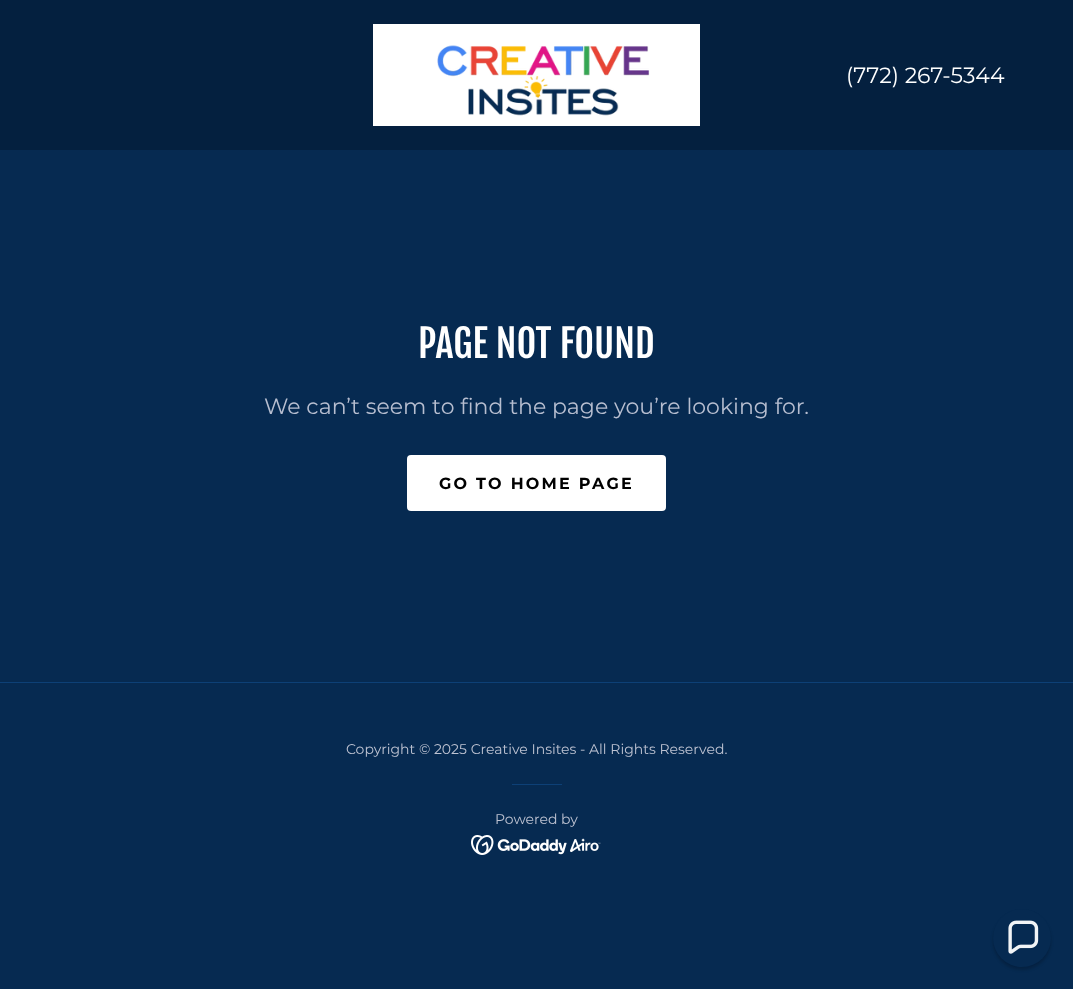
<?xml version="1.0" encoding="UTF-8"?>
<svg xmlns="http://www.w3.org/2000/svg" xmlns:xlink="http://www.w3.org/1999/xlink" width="1073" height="989">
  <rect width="100%" height="100%" fill="#062a51" />
  <rect width="1073" height="150" fill="#04203f" />
  <rect x="373" y="24" width="327" height="102" fill="#ffffff" />
  <image x="437" y="45" width="213" height="71" xlink:href="image1.png" />
  <rect x="407" y="455" width="259" height="56" rx="4" fill="#ffffff" />
  <rect y="682" width="1073" height="1" fill="#0d4076" />
  <rect x="512" y="784" width="50" height="1" fill="#0d4076" />
  <image x="471" y="835" width="130" height="20" xlink:href="image2.png" />
  <rect x="993" y="912" width="58" height="58" rx="29" fill="#000204" fill-opacity="0.2" filter="blur(1.5px)" />
  <circle cx="1022" cy="938" r="29" fill="#062a51" />
  <image x="1008" y="920" width="31" height="34" xlink:href="image3.png" />
  <text x="846" y="83" style="font-family: Montserrat; font-size: 22px; fill: #ffffff">(772) 267-5344</text>
  <text x="418" y="358" style="font-family: Fjalla One; font-size: 38px; fill: #ffffff">PAGE NOT FOUND</text>
  <text x="264" y="414" style="font-family: Montserrat; font-size: 22px; fill: #b7bed0">We can’t seem to find the page you’re looking for.</text>
  <text x="439" y="489" style="font-family: Montserrat; font-size: 16px; font-weight: bold; letter-spacing: 2.25px; fill: #000000">GO TO HOME PAGE</text>
  <text x="346" y="754" style="font-family: Montserrat; font-size: 14px; fill: #bec3d2">Copyright © 2025 Creative Insites - All Rights Reserved.</text>
  <text x="495" y="824" style="font-family: Montserrat; font-size: 14px; fill: #bec3d2">Powered by</text>
</svg>
